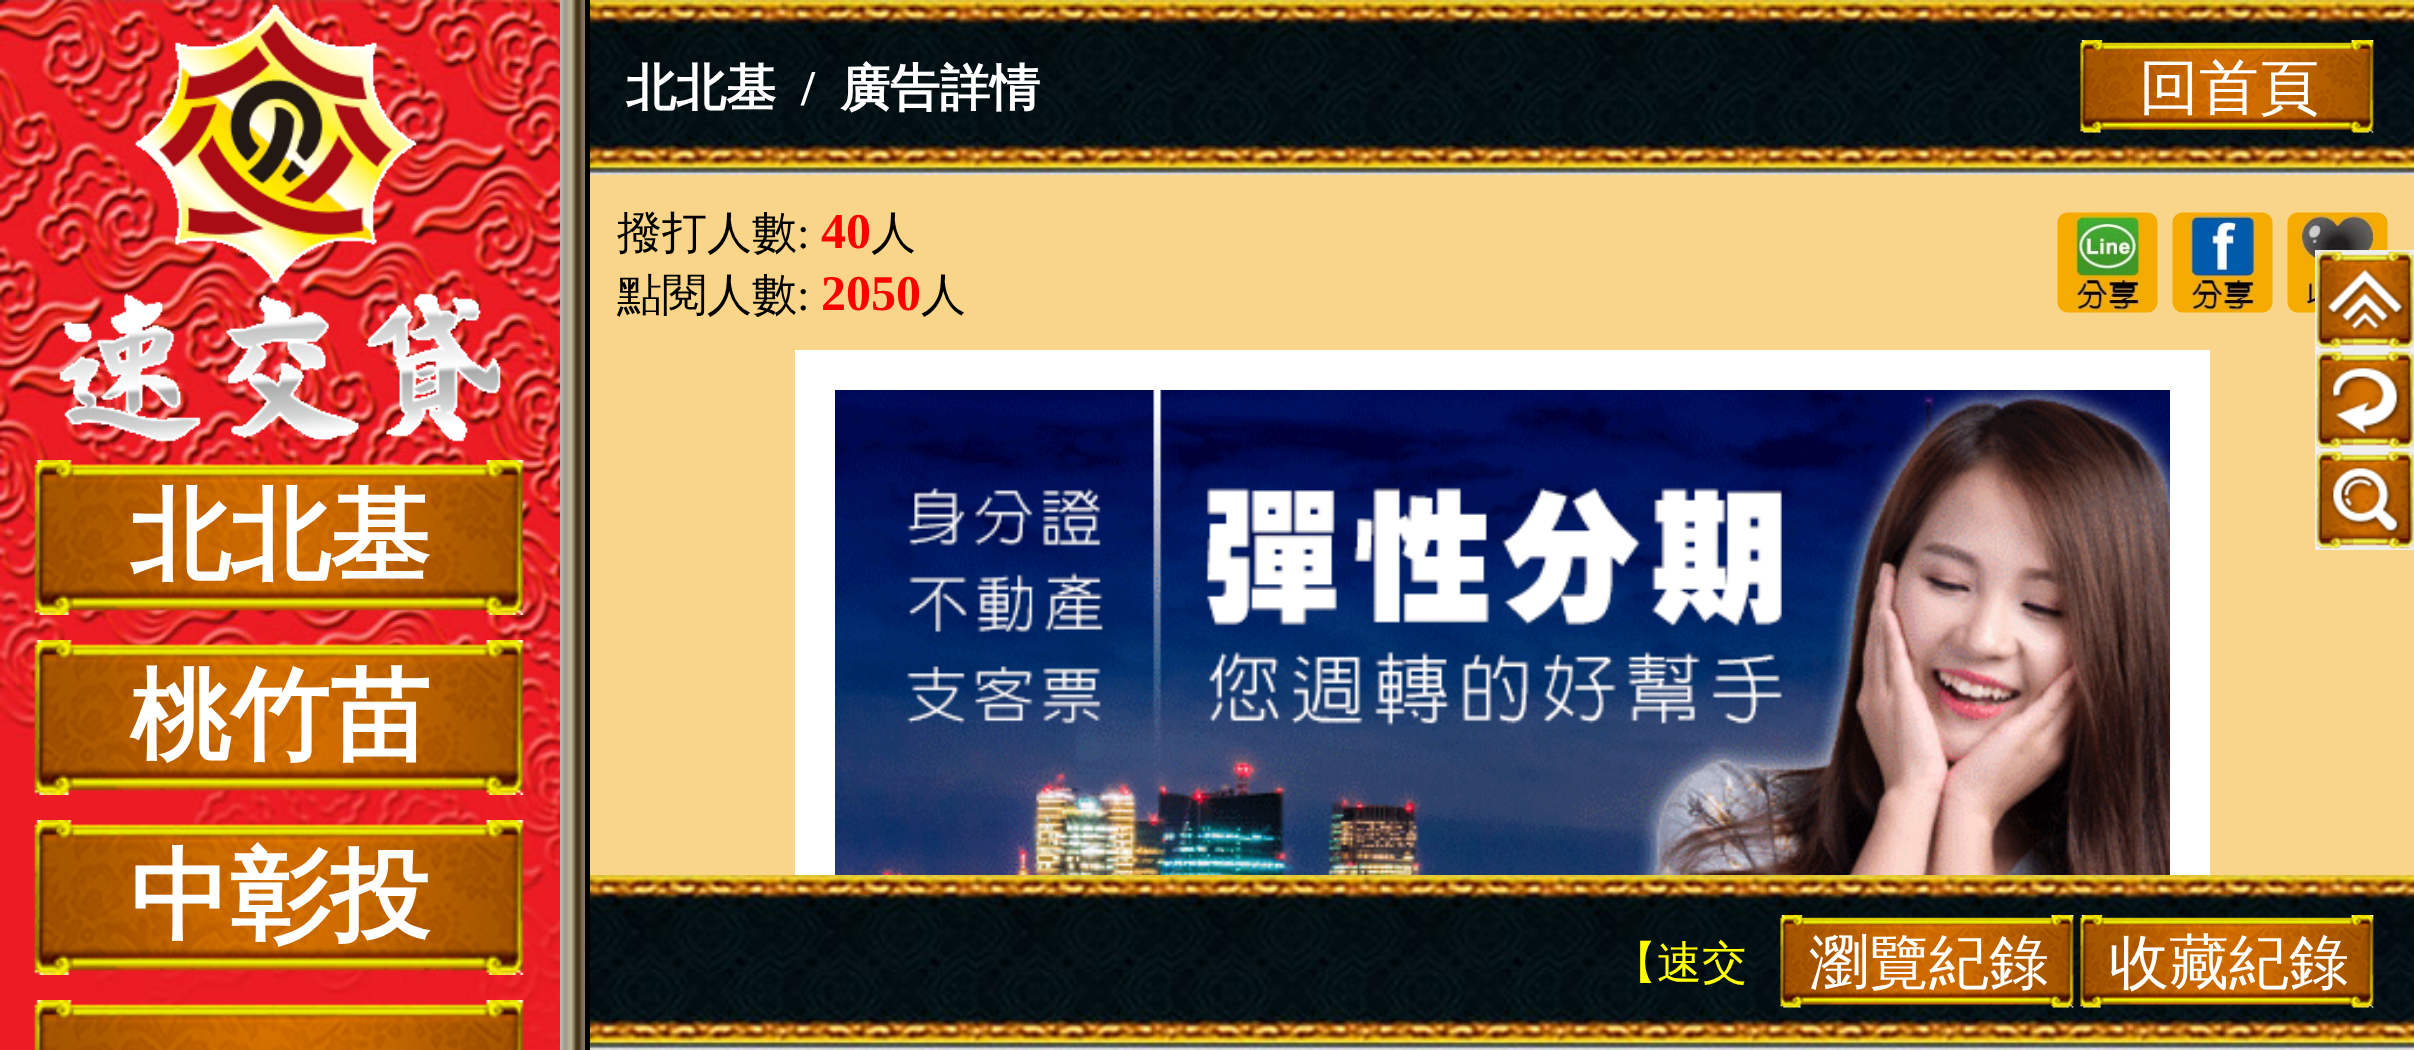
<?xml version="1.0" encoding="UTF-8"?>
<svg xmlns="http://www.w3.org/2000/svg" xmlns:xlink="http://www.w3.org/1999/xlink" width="2414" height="1050">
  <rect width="100%" height="100%" fill="#000000" />
  <image x="560" y="0" width="25" height="1050" xlink:href="image1.png" />
  <image x="590" y="0" width="1824" height="175" xlink:href="image2.png" />
  <image x="2080" y="40" width="294" height="93" xlink:href="image3.png" />
  <rect x="590" y="175" width="1824" height="700" fill="#f8d588" />
  <image x="2057" y="212" width="101" height="101" xlink:href="image4.png" />
  <image x="2172" y="212" width="101" height="101" xlink:href="image5.png" />
  <image x="2287" y="212" width="101" height="101" xlink:href="image6.png" />
  <rect x="795" y="350" width="1415" height="525" fill="#ffffff" />
  <image x="835" y="390" width="1335" height="485" xlink:href="image7.png" />
  <image x="590" y="875" width="1824" height="175" xlink:href="image8.png" />
  <image x="1780" y="915" width="294" height="93" xlink:href="image9.png" />
  <image x="2080" y="915" width="294" height="93" xlink:href="image3.png" />
  <rect x="2315" y="250" width="99" height="300" fill="#efefef" />
  <image x="2316" y="251" width="98" height="98" xlink:href="image10.png" />
  <image x="2316" y="351" width="98" height="98" xlink:href="image11.png" />
  <image x="2316" y="451" width="98" height="98" xlink:href="image12.png" />
  <rect y="1047" width="560" height="3" fill="#eb1c24" />
  <image x="0" y="0" width="560" height="1047" xlink:href="image13.png" />
  <image x="59" y="4" width="442" height="438" xlink:href="image14.png" />
  <image x="34" y="460" width="490" height="155" xlink:href="image15.png" />
  <image x="34" y="640" width="490" height="155" xlink:href="image16.png" />
  <image x="34" y="820" width="490" height="155" xlink:href="image17.png" />
  <image x="34" y="1000" width="490" height="50" xlink:href="image18.png" />
  <text x="626" y="105" style="font-family: WenQuanYi Zen Hei; font-size: 50px; font-weight: bold; fill: #ffffff">北北基</text>
  <text x="801" y="105" style="font-family: Liberation Serif; font-size: 50px; font-weight: bold; fill: #ffffff">/</text>
  <text x="840" y="105" style="font-family: WenQuanYi Zen Hei; font-size: 50px; font-weight: bold; fill: #ffffff">廣告詳情</text>
  <text x="2139" y="108" style="font-family: WenQuanYi Zen Hei; font-size: 60px; font-weight: 500; fill: #ffffff">回首頁</text>
  <text x="617" y="248" style="font-family: WenQuanYi Zen Hei; font-size: 45px; font-weight: 500; fill: #000000">撥打人數</text>
  <text x="797" y="248" style="font-family: Liberation Serif; font-size: 45px; fill: #000000">:</text>
  <text x="821" y="248" style="font-family: Liberation Serif; font-size: 50px; font-weight: bold; fill: #ff0000">40</text>
  <text x="871" y="248" style="font-family: WenQuanYi Zen Hei; font-size: 45px; font-weight: 500; fill: #000000">人</text>
  <text x="617" y="310" style="font-family: WenQuanYi Zen Hei; font-size: 45px; font-weight: 500; fill: #000000">點閱人數</text>
  <text x="797" y="310" style="font-family: Liberation Serif; font-size: 45px; fill: #000000">:</text>
  <text x="821" y="310" style="font-family: Liberation Serif; font-size: 50px; font-weight: bold; fill: #ff0000">2050</text>
  <text x="921" y="310" style="font-family: WenQuanYi Zen Hei; font-size: 45px; font-weight: 500; fill: #000000">人</text>
  <text x="1612" y="978" style="font-family: WenQuanYi Zen Hei; font-size: 45px; font-weight: 500; fill: #ffff00">【速交</text>
  <text x="1809" y="983" style="font-family: WenQuanYi Zen Hei; font-size: 60px; font-weight: 500; fill: #ffffff">瀏覽紀錄</text>
  <text x="2109" y="983" style="font-family: WenQuanYi Zen Hei; font-size: 60px; font-weight: 500; fill: #ffffff">收藏紀錄</text>
  <text x="130" y="570" style="font-family: WenQuanYi Zen Hei; font-size: 100px; font-weight: bold; fill: #ffffff">北北基</text>
  <text x="130" y="750" style="font-family: WenQuanYi Zen Hei; font-size: 100px; font-weight: bold; fill: #ffffff">桃竹苗</text>
  <text x="130" y="930" style="font-family: WenQuanYi Zen Hei; font-size: 100px; font-weight: bold; fill: #ffffff">中彰投</text>
</svg>
